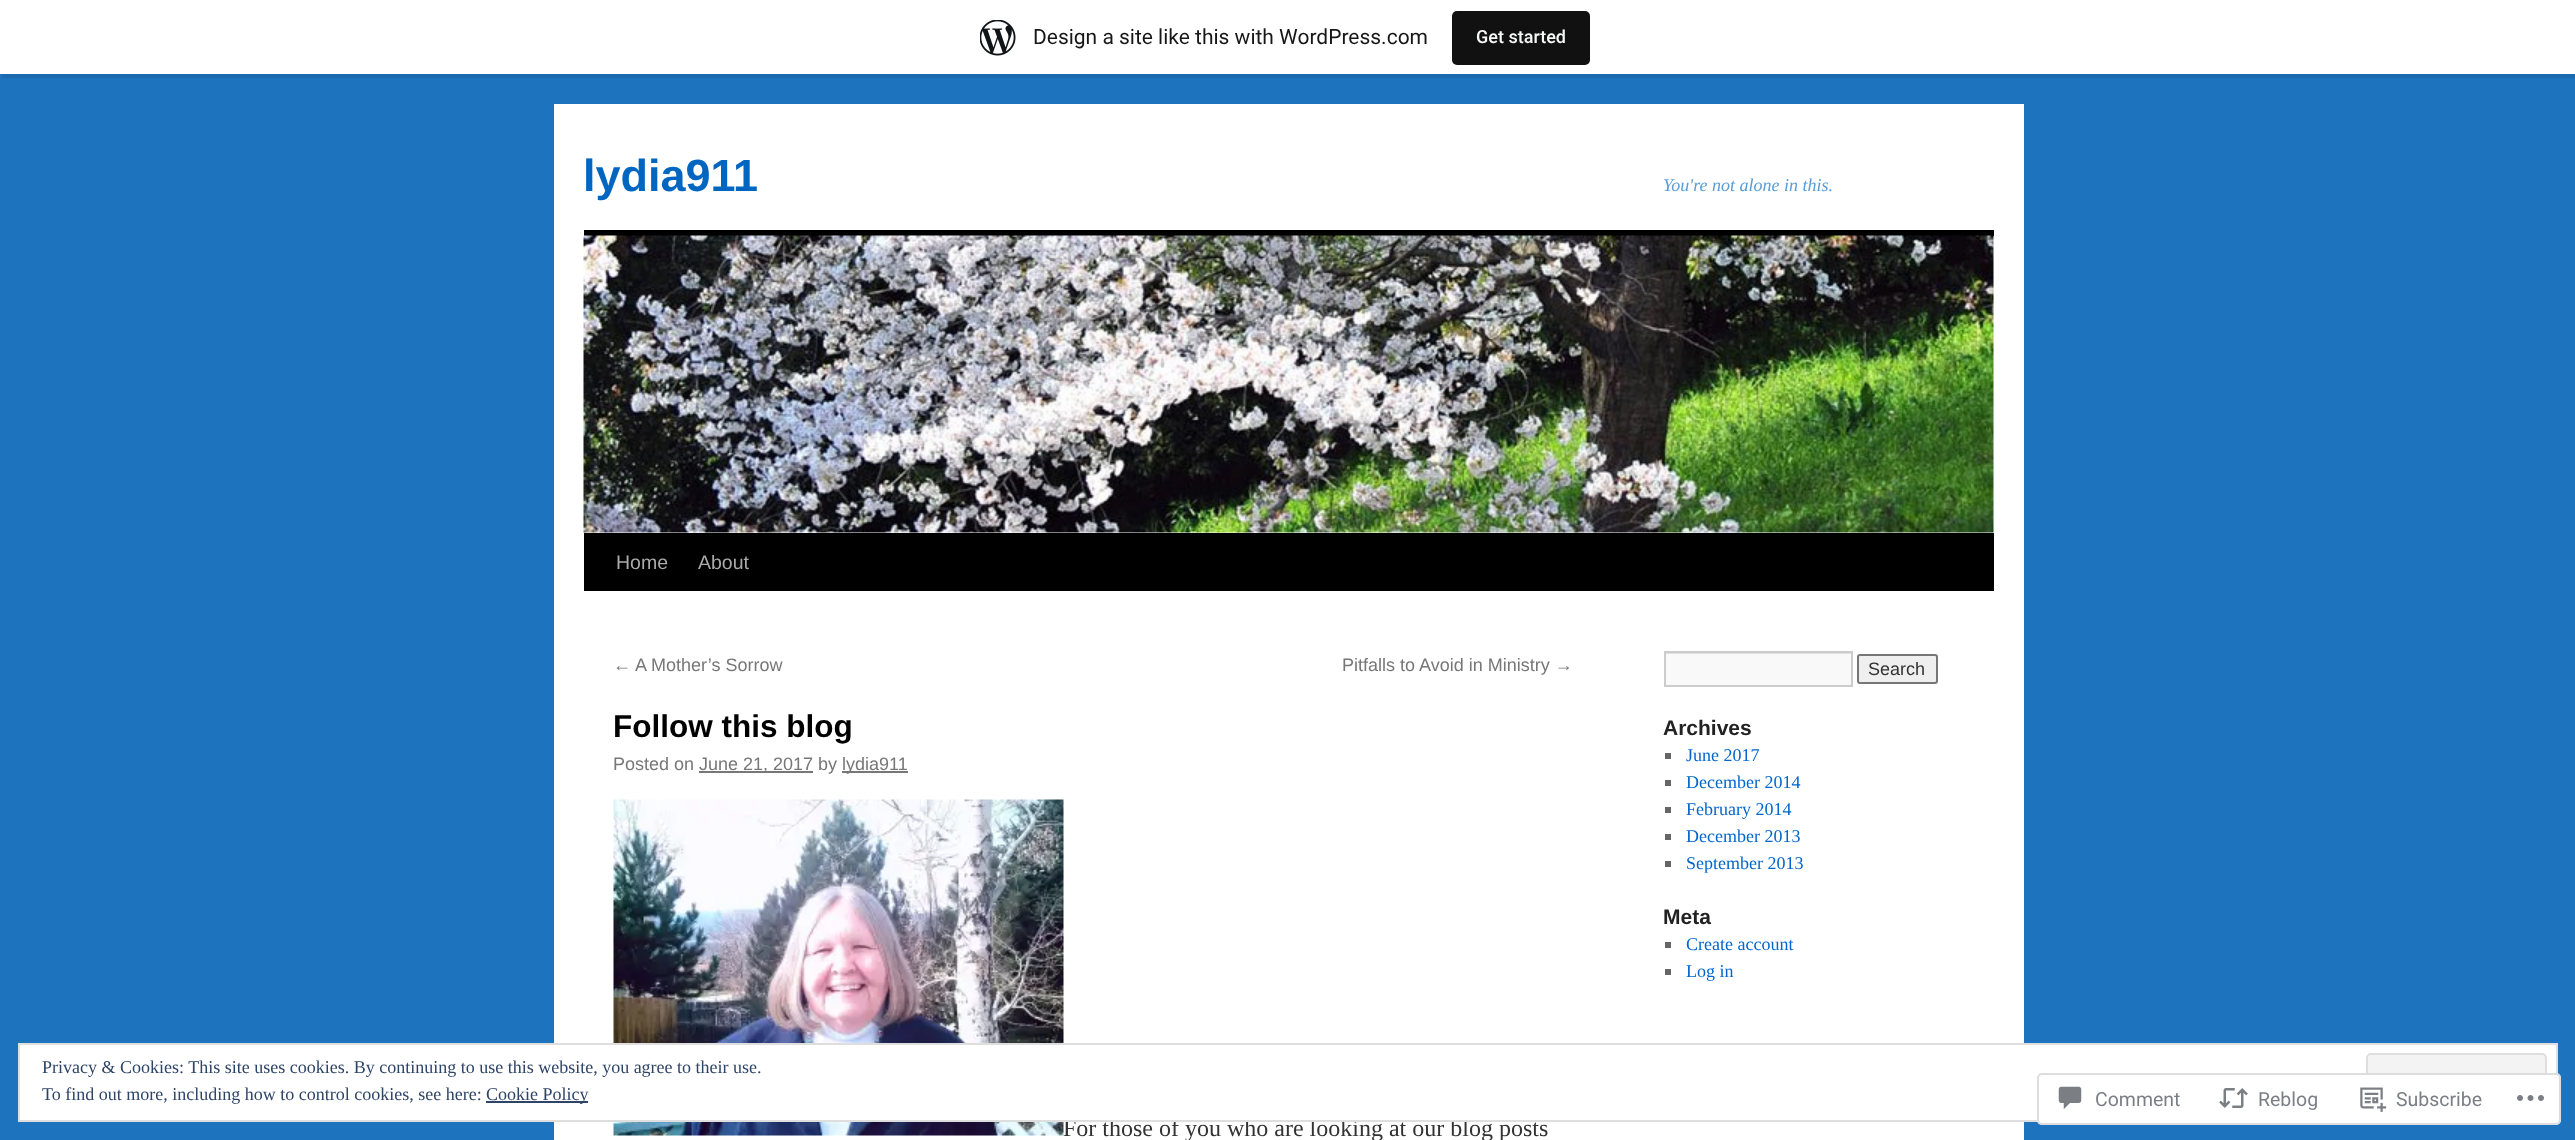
<?xml version="1.0" encoding="UTF-8"?>
<svg xmlns="http://www.w3.org/2000/svg" xmlns:xlink="http://www.w3.org/1999/xlink" width="2575" height="1140">
  <defs>
    <clipPath id="clip1"><rect x="1665" y="653" width="186" height="33" /></clipPath>
  </defs>
  <rect width="100%" height="100%" fill="#1e73be" />
  <path d="M 2 74 v 4 h 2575 v -73 h -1 v 69 z" fill="#000000" fill-opacity="0.08" />
  <rect width="2575" height="74" fill="#ffffff" />
  <image x="980" y="20" width="36" height="36" xlink:href="image1.png" />
  <rect x="1452" y="11" width="138" height="54" rx="5" fill="#111111" />
  <rect x="554" y="104" width="1470" height="1036" fill="#ffffff" />
  <rect x="584" y="230" width="1410" height="6" fill="#000000" />
  <rect x="584" y="533" width="1410" height="58" fill="#000000" />
  <image x="583" y="235" width="1411" height="298" xlink:href="image2.png" />
  <rect x="699" y="771" width="114" height="2" fill="#777777" />
  <rect x="842" y="771" width="66" height="2" fill="#777777" />
  <image x="613" y="799" width="451" height="337" xlink:href="image3.png" />
  <rect x="1666" y="654" width="185" height="31" fill="#f9f9f9" />
  <g clip-path="url(#clip1)">
    <path d="M 1516 504 h 484 v 330 h -484 z m 150 150 h 186 v 33 h -186 z" fill="#e0e0e0" fill-rule="evenodd" />
  </g>
  <rect x="1665" y="652" width="187" height="34" fill="none" stroke="#cccccc" stroke-width="2" />
  <rect x="1858" y="655" width="79" height="28" rx="2" fill="#efefef" stroke="#767676" stroke-width="2" />
  <rect x="1665" y="753" width="6" height="6" fill="#666666" />
  <rect x="1665" y="780" width="6" height="6" fill="#666666" />
  <rect x="1665" y="807" width="6" height="6" fill="#666666" />
  <rect x="1665" y="834" width="6" height="6" fill="#666666" />
  <rect x="1665" y="861" width="6" height="6" fill="#666666" />
  <rect x="1665" y="942" width="6" height="6" fill="#666666" />
  <rect x="1665" y="969" width="6" height="6" fill="#666666" />
  <text x="1033" y="44" style="font-family: Roboto; font-size: 21px; fill: #171717">Design a site like this with WordPress.com</text>
  <text x="1476" y="43" style="font-family: Roboto; font-size: 18px; font-weight: 500; fill: #f6f7f7">Get started</text>
  <text x="583" y="191" style="font-family: Liberation Sans; font-size: 45px; font-weight: bold; fill: #0066bf">lydia911</text>
  <text x="1663" y="191" style="font-family: Liberation Serif; font-size: 18px; font-style: italic; fill: #599cd5">You're not alone in this.</text>
  <text x="616" y="569" style="font-family: Liberation Sans; font-size: 19.5px; fill: #aaaaaa">Home</text>
  <text x="698" y="569" style="font-family: Liberation Sans; font-size: 19.5px; fill: #aaaaaa">About</text>
  <text x="613" y="671" style="font-family: Liberation Sans; font-size: 18px; fill: #777777">←</text>
  <text x="635" y="671" style="font-family: Liberation Sans; font-size: 18px; fill: #777777">A Mother’s Sorrow</text>
  <text x="1342" y="671" style="font-family: Liberation Sans; font-size: 18px; fill: #777777">Pitfalls to Avoid in Ministry →</text>
  <text x="613" y="737" style="font-family: Liberation Sans; font-size: 31.5px; font-weight: bold; fill: #000000">Follow this blog</text>
  <text x="613" y="770" style="font-family: Liberation Sans; font-size: 18px; fill: #777777">Posted on</text>
  <text x="699" y="770" style="font-family: Liberation Sans; font-size: 18px; fill: #777777">June 21, 2017 by</text>
  <text x="842" y="770" style="font-family: Liberation Sans; font-size: 18px; fill: #777777">lydia911</text>
  <text x="1063" y="1136" style="font-family: Liberation Serif; font-size: 24px; fill: #333333">For those of you who are looking at our blog posts</text>
  <rect x="19" y="1044" width="2538" height="77" fill="#ffffff" stroke="#dedede" stroke-width="2" />
  <rect x="2367" y="1054" width="179" height="57" rx="4" fill="#f3f3f3" stroke="#dedede" stroke-width="2" />
  <rect x="486" y="1101" width="102" height="2" fill="#2e4467" />
  <text x="486" y="1100" style="font-family: Liberation Serif; font-size: 18px; fill: #2e4467">Cookie Policy</text>
  <text x="42" y="1100" style="font-family: Liberation Serif; font-size: 18px; fill: #2e4467">To find out more, including how to control cookies, see here:</text>
  <text x="42" y="1073" style="font-family: Liberation Serif; font-size: 18px; fill: #2e4467">Privacy &amp; Cookies: This site uses cookies. By continuing to use this website, you agree to their use.</text>
  <text x="1868" y="675" style="font-family: Liberation Sans; font-size: 18px; fill: #333333">Search</text>
  <text x="1663" y="735" style="font-family: Liberation Sans; font-size: 21px; font-weight: bold; fill: #222222">Archives</text>
  <text x="1686" y="761" style="font-family: Liberation Serif; font-size: 18px; fill: #0066cc">June 2017</text>
  <text x="1686" y="788" style="font-family: Liberation Serif; font-size: 18px; fill: #0066cc">December 2014</text>
  <text x="1686" y="815" style="font-family: Liberation Serif; font-size: 18px; fill: #0066cc">February 2014</text>
  <text x="1686" y="842" style="font-family: Liberation Serif; font-size: 18px; fill: #0066cc">December 2013</text>
  <text x="1686" y="869" style="font-family: Liberation Serif; font-size: 18px; fill: #0066cc">September 2013</text>
  <text x="1663" y="924" style="font-family: Liberation Sans; font-size: 21px; font-weight: bold; fill: #222222">Meta</text>
  <text x="1686" y="950" style="font-family: Liberation Serif; font-size: 18px; fill: #0066cc">Create account</text>
  <text x="1686" y="977" style="font-family: Liberation Serif; font-size: 18px; fill: #0066cc">Log in</text>
  <rect x="2037" y="1073" width="524" height="52" rx="5" fill="#ffffff" fill-opacity="0.98" />
  <rect x="2038" y="1074" width="522" height="50" rx="4" fill="none" stroke="#dcdcde" stroke-opacity="0.98" stroke-width="2" />
  <image x="2058" y="1086" width="24" height="24" xlink:href="image4.png" />
  <text x="2095" y="1106" style="font-family: Roboto; font-size: 19.5px; fill: #7b7f85">Comment</text>
  <image x="2219" y="1088" width="29" height="20" xlink:href="image5.png" />
  <text x="2258" y="1106" style="font-family: Roboto; font-size: 19.5px; fill: #7b7f85">Reblog</text>
  <image x="2360" y="1087" width="27" height="25" xlink:href="image6.png" />
  <text x="2396" y="1106" style="font-family: Roboto; font-size: 19.5px; fill: #7b7f85">Subscribe</text>
  <image x="2517" y="1095" width="27" height="6" xlink:href="image7.png" />
</svg>
